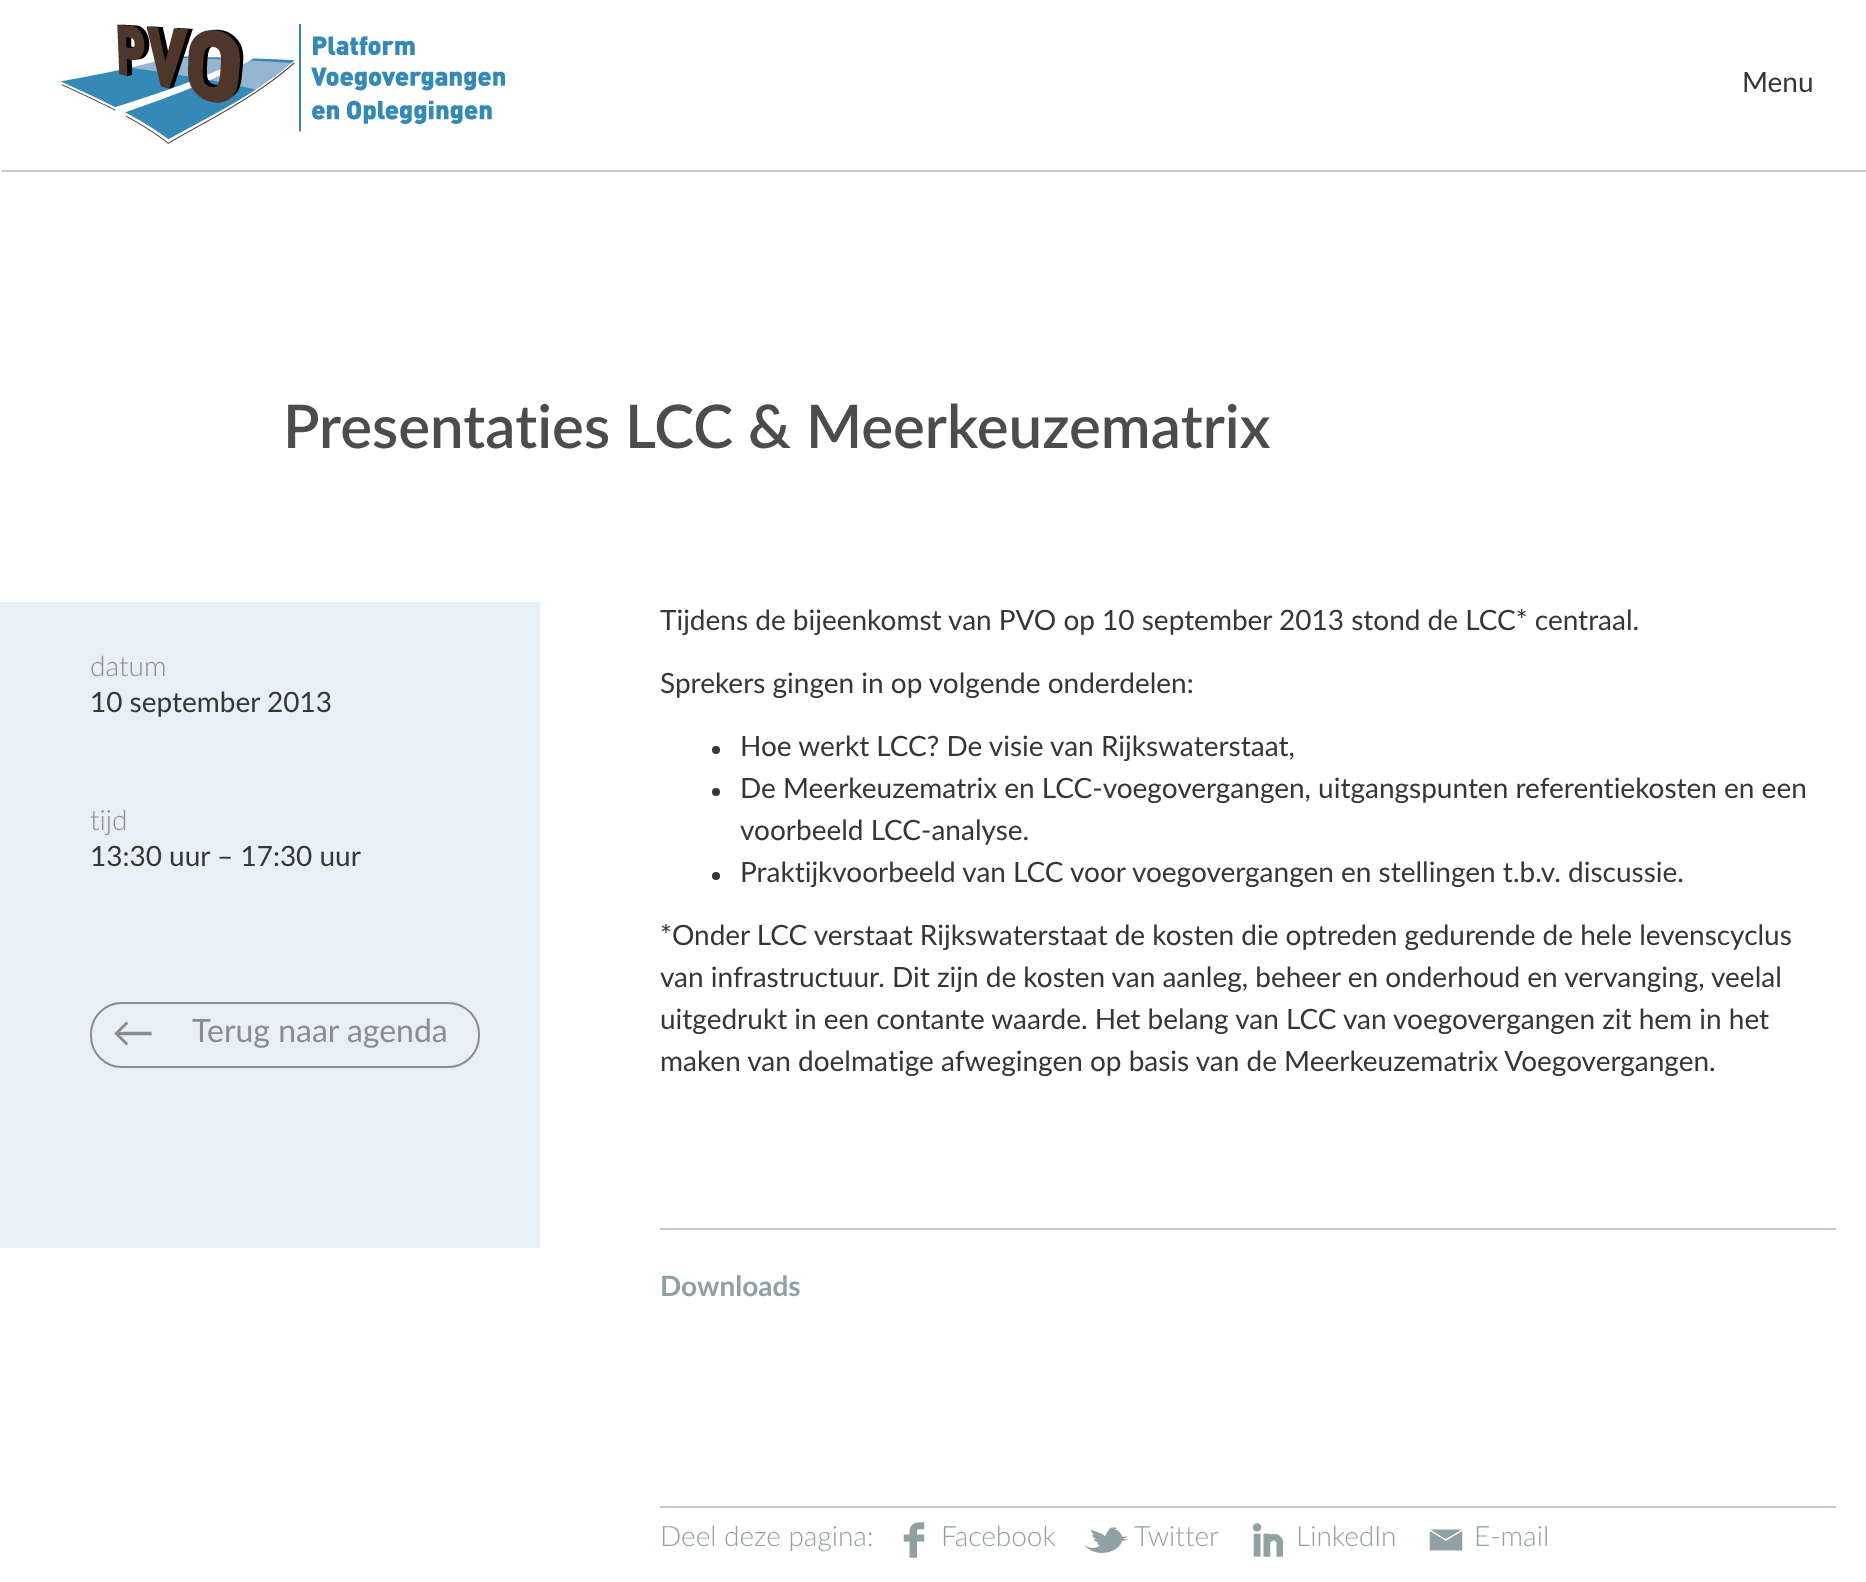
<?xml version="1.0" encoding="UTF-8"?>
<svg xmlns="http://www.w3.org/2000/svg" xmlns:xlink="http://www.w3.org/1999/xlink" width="1866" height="1582">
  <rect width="100%" height="100%" fill="#ffffff" />
  <image x="61" y="24" width="444" height="120" xlink:href="image1.png" />
  <rect x="2" y="170" width="1864" height="2" fill="#c3cbcc" />
  <rect y="602" width="540" height="646" fill="#e8f0f7" />
  <rect x="91" y="1003" width="388" height="64" rx="31" fill="none" stroke="#8c8c8c" stroke-width="2" />
  <circle cx="716" cy="750" r="4" fill="#333834" />
  <circle cx="716" cy="792" r="4" fill="#333834" />
  <circle cx="716" cy="876" r="4" fill="#333834" />
  <rect x="660" y="1228" width="1176" height="2" fill="#c3cbcc" />
  <rect x="660" y="1506" width="1176" height="2" fill="#c3cbcc" />
  <image x="903" y="1522" width="22" height="36" xlink:href="image2.png" />
  <image x="1084" y="1527" width="44" height="26" xlink:href="image3.png" />
  <image x="1253" y="1523" width="30" height="34" xlink:href="image4.png" />
  <image x="1429" y="1529" width="34" height="22" xlink:href="image5.png" />
  <text x="1742" y="92" style="font-family: Lato; font-size: 28px; fill: #333834">Menu</text>
  <text x="283" y="448" style="font-family: Lato; font-size: 60px; font-weight: 600; fill: #4c4c4c">Presentaties LCC &amp; Meerkeuzematrix</text>
  <text x="90" y="676" style="font-family: Lato; font-size: 28px; font-weight: 300; fill: #8c8c8c">datum</text>
  <text x="90" y="712" style="font-family: Lato; font-size: 28px; fill: #333834">10 september 2013</text>
  <text x="90" y="830" style="font-family: Lato; font-size: 28px; font-weight: 300; fill: #8c8c8c">tijd</text>
  <text x="90" y="866" style="font-family: Lato; font-size: 28px; fill: #333834">13:30 uur – 17:30 uur</text>
  <text x="112" y="1047" style="font-family: Lato; font-size: 42px; fill: #8c8c8c">←</text>
  <text x="192" y="1042" style="font-family: Lato; font-size: 32px; fill: #8c8c8c">Terug naar agenda</text>
  <text x="660" y="630" style="font-family: Lato; font-size: 28px; fill: #333834">Tijdens de bijeenkomst van PVO op 10 september 2013 stond de LCC* centraal.</text>
  <text x="660" y="693" style="font-family: Lato; font-size: 28px; fill: #333834">Sprekers gingen in op volgende onderdelen:</text>
  <text x="740" y="756" style="font-family: Lato; font-size: 28px; fill: #333834">Hoe werkt LCC? De visie van Rijkswaterstaat,</text>
  <text x="740" y="798" style="font-family: Lato; font-size: 28px; fill: #333834">De Meerkeuzematrix en LCC-voegovergangen, uitgangspunten referentiekosten en een</text>
  <text x="740" y="840" style="font-family: Lato; font-size: 28px; fill: #333834">voorbeeld LCC-analyse.</text>
  <text x="740" y="882" style="font-family: Lato; font-size: 28px; fill: #333834">Praktijkvoorbeeld van LCC voor voegovergangen en stellingen t.b.v. discussie.</text>
  <text x="660" y="945" style="font-family: Lato; font-size: 28px; fill: #333834">*Onder LCC verstaat Rijkswaterstaat de kosten die optreden gedurende de hele levenscyclus</text>
  <text x="660" y="987" style="font-family: Lato; font-size: 28px; fill: #333834">van infrastructuur. Dit zijn de kosten van aanleg, beheer en onderhoud en vervanging, veelal</text>
  <text x="660" y="1029" style="font-family: Lato; font-size: 28px; fill: #333834">uitgedrukt in een contante waarde. Het belang van LCC van voegovergangen zit hem in het</text>
  <text x="660" y="1071" style="font-family: Lato; font-size: 28px; fill: #333834">maken van doelmatige afwegingen op basis van de Meerkeuzematrix Voegovergangen.</text>
  <text x="660" y="1296" style="font-family: Lato; font-size: 28px; font-weight: bold; fill: #91a1a3">Downloads</text>
  <text x="660" y="1546" style="font-family: Lato; font-size: 28px; font-weight: 300; fill: #91a1a3">Deel deze pagina:</text>
  <text x="941" y="1546" style="font-family: Lato; font-size: 28px; font-weight: 300; fill: #91a1a3">Facebook</text>
  <text x="1134" y="1546" style="font-family: Lato; font-size: 28px; font-weight: 300; fill: #91a1a3">Twitter</text>
  <text x="1296" y="1546" style="font-family: Lato; font-size: 28px; font-weight: 300; fill: #91a1a3">LinkedIn</text>
  <text x="1474" y="1546" style="font-family: Lato; font-size: 28px; font-weight: 300; fill: #91a1a3">E-mail</text>
</svg>
